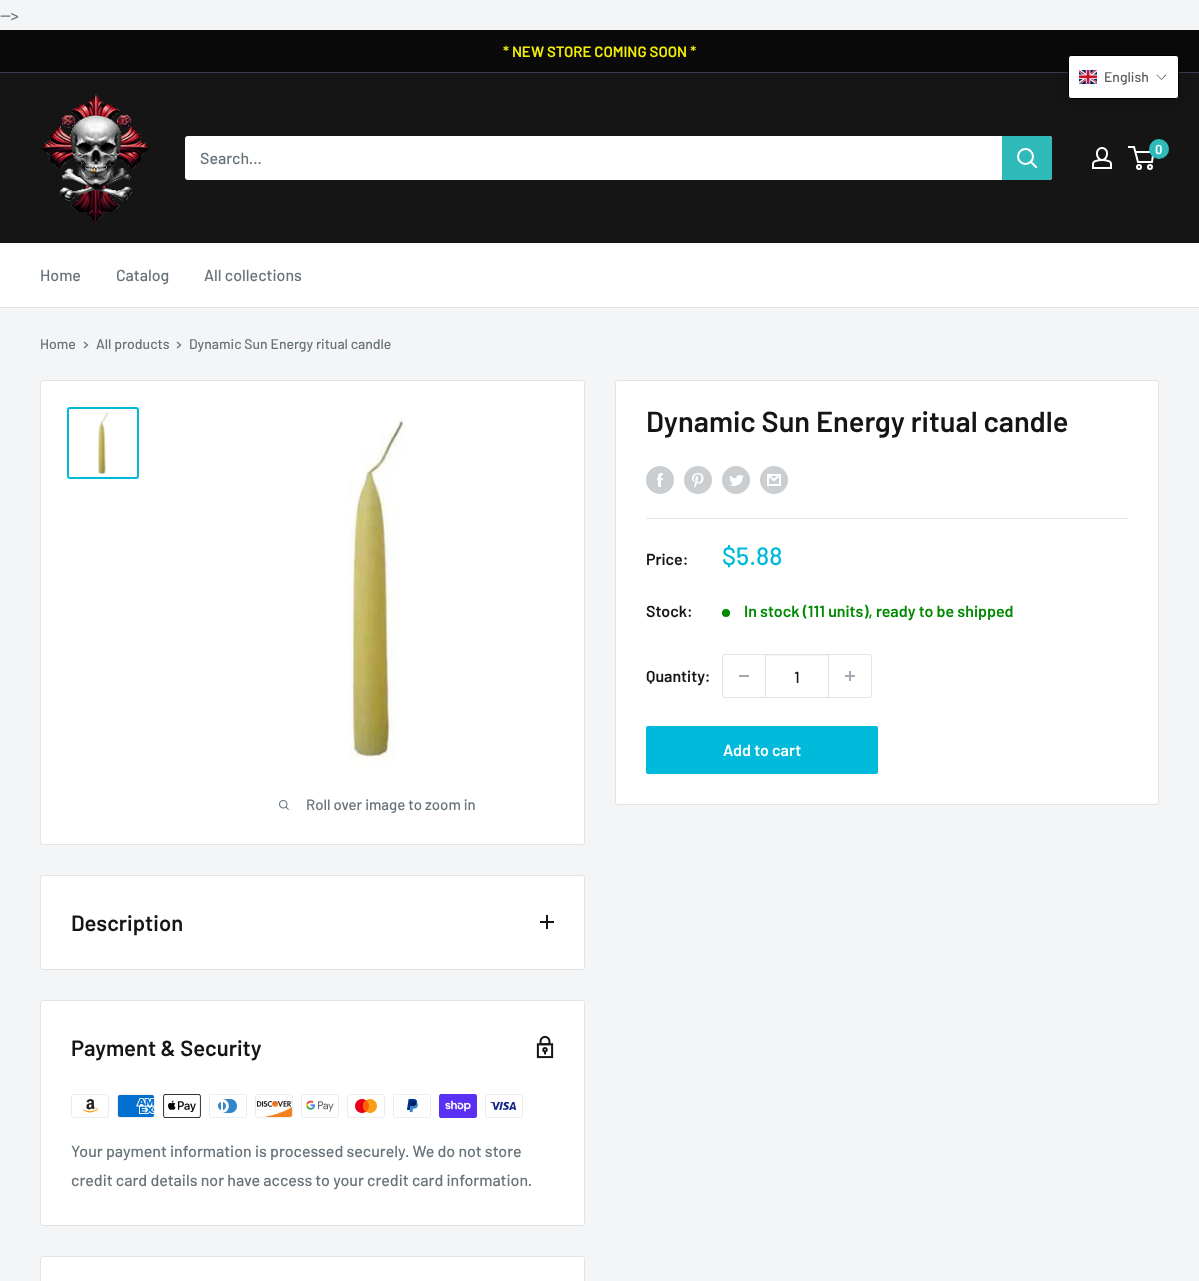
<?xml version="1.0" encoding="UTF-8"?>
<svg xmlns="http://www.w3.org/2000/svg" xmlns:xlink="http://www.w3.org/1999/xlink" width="1199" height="1281">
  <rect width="100%" height="100%" fill="#f3f5f6" />
  <rect y="30" width="1199" height="42" fill="#0b0a0b" />
  <rect y="72" width="1199" height="1" fill="#393c4f" />
  <rect y="73" width="1199" height="170" fill="#151516" />
  <rect x="1068" y="55" width="111" height="44" rx="3" fill="#000000" fill-opacity="0.15" filter="blur(5px)" />
  <rect x="1068.5" y="55.5" width="110" height="43" rx="2.5" fill="#ffffff" stroke="#000000" />
  <image x="1079" y="70" width="18" height="14" xlink:href="image1.png" />
  <path d="M 1165.5 74.5 l 1 0.5 l -5 5 l -0.5 -0.5 z" fill="#6c6c6c" />
  <path d="M 1157 74.5 l 5 5 l -0.5 0.5 l -5 -5 z" fill="#6c6c6c" />
  <image x="41" y="94" width="109" height="128" xlink:href="image2.png" />
  <image x="1092" y="147" width="20" height="22" xlink:href="image3.png" />
  <circle cx="1139" cy="167" r="2" fill="none" stroke="#ffffff" stroke-width="2" />
  <circle cx="1150" cy="167" r="2" fill="none" stroke="#ffffff" stroke-width="2" />
  <path d="M 1135.5 152 h 18 l -1.5 10 h -14 l -4 -15 h -6" fill="none" stroke="#ffffff" stroke-width="2" />
  <circle cx="1159" cy="149" r="10" fill="#2fbaba" />
  <rect x="185" y="136" width="867" height="44" rx="3" fill="#ffffff" />
  <path d="M 1002 136 h 47 c 1.5 0 3 1.5 3 3 v 38 c 0 1.5 -1.5 3 -3 3 h -47 z" fill="#2fbaba" />
  <path d="M 1036 167 l -5 -5" fill="none" stroke="#ffffff" stroke-width="2" stroke-linecap="square" />
  <circle cx="1025.5" cy="156.5" r="7.5" fill="none" stroke="#ffffff" stroke-width="2" />
  <rect y="243" width="1199" height="64" fill="#ffffff" />
  <rect y="307" width="1199" height="1" fill="#e1e3e4" />
  <path d="M 84.5 342.5 l 3 2.5 l -3 2.5" fill="none" stroke="#677279" stroke-width="1.3" stroke-linecap="square" />
  <path d="M 177.5 342.5 l 3 2.5 l -3 2.5" fill="none" stroke="#677279" stroke-width="1.3" stroke-linecap="square" />
  <rect x="615.5" y="380.5" width="543" height="424" rx="2.5" fill="#ffffff" stroke="#e1e3e4" />
  <image x="646" y="466" width="28" height="28" xlink:href="image4.png" />
  <image x="684" y="466" width="28" height="28" xlink:href="image5.png" />
  <image x="722" y="466" width="28" height="28" xlink:href="image6.png" />
  <image x="760" y="466" width="28" height="28" xlink:href="image7.png" />
  <rect x="646" y="518" width="482" height="1" fill="#e1e3e4" />
  <circle cx="726" cy="613" r="4" fill="#008a00" />
  <rect x="722.5" y="654.5" width="149" height="43" rx="2.5" fill="none" stroke="#e1e3e4" />
  <rect x="739" y="675" width="10" height="2" fill="#a4aaaf" />
  <rect x="766" y="655" width="62" height="1" fill="#f3f4f4" />
  <rect x="828" y="655" width="1" height="42" fill="#e1e3e4" />
  <rect x="765" y="655" width="1" height="42" fill="#e1e3e4" />
  <image x="845" y="671" width="10" height="10" xlink:href="image8.png" />
  <rect x="646" y="726" width="232" height="48" rx="2" fill="#00badb" />
  <rect x="40.5" y="380.5" width="544" height="464" rx="2.5" fill="#ffffff" stroke="#e1e3e4" />
  <rect x="68" y="408" width="70" height="70" rx="2" fill="none" stroke="#00badb" stroke-width="2" />
  <image x="97" y="412" width="12" height="63" xlink:href="image9.png" />
  <image x="349" y="418" width="57" height="346" xlink:href="image10.png" />
  <image x="279" y="800" width="10" height="10" xlink:href="image11.png" />
  <rect x="40.5" y="875.5" width="544" height="94" rx="2.5" fill="#ffffff" stroke="#e1e3e4" />
  <rect x="546" y="915" width="2" height="14" fill="#151516" />
  <rect x="540" y="921" width="14" height="2" fill="#151516" />
  <rect x="40.5" y="1000.5" width="544" height="225" rx="2.5" fill="#ffffff" stroke="#e1e3e4" />
  <image x="536" y="1035" width="18" height="24" xlink:href="image12.png" />
  <image x="71" y="1094" width="38" height="24" xlink:href="image13.png" />
  <image x="117" y="1094" width="38" height="24" xlink:href="image14.png" />
  <image x="163" y="1094" width="38" height="24" xlink:href="image15.png" />
  <image x="209" y="1094" width="38" height="24" xlink:href="image16.png" />
  <image x="255" y="1094" width="38" height="24" xlink:href="image17.png" />
  <image x="301" y="1094" width="38" height="24" xlink:href="image18.png" />
  <image x="347" y="1094" width="38" height="24" xlink:href="image19.png" />
  <image x="393" y="1094" width="38" height="24" xlink:href="image20.png" />
  <image x="439" y="1094" width="38" height="24" xlink:href="image21.png" />
  <image x="485" y="1094" width="38" height="24" xlink:href="image22.png" />
  <rect x="40.5" y="1256.5" width="544" height="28" rx="2.5" fill="#ffffff" stroke="#e1e3e4" />
  <text x="0" y="21" style="font-family: Barlow; font-size: 16px; font-weight: 500; fill: #677279">--&gt;</text>
  <text x="503" y="57" style="font-family: Barlow; font-size: 15px; font-weight: 600; fill: #f1ee07">* NEW STORE COMING SOON *</text>
  <text x="1104" y="82" style="font-family: Barlow; font-size: 14px; font-weight: 500; fill: #5c5c5c">English</text>
  <text x="1155" y="154" style="font-family: Barlow; font-size: 13px; font-weight: 600; fill: #ffffff">0</text>
  <text x="200" y="164" style="font-family: Barlow; font-size: 16px; font-weight: 500; fill: #677279">Search...</text>
  <text x="40" y="281" style="font-family: Barlow; font-size: 16px; font-weight: 500; fill: #677279">Home</text>
  <text x="116" y="281" style="font-family: Barlow; font-size: 16px; font-weight: 500; fill: #677279">Catalog</text>
  <text x="204" y="281" style="font-family: Barlow; font-size: 16px; font-weight: 500; fill: #677279">All collections</text>
  <text x="40" y="349" style="font-family: Barlow; font-size: 14px; font-weight: 500; fill: #677279">Home</text>
  <text x="96" y="349" style="font-family: Barlow; font-size: 14px; font-weight: 500; fill: #677279">All products</text>
  <text x="189" y="349" style="font-family: Barlow; font-size: 14px; font-weight: 500; fill: #677279">Dynamic Sun Energy ritual candle</text>
  <text x="646" y="432" style="font-family: Barlow; font-size: 29px; font-weight: 600; fill: #151516">Dynamic Sun Energy ritual candle</text>
  <text x="646" y="565" style="font-family: Barlow; font-size: 16px; font-weight: 600; fill: #151516">Price:</text>
  <text x="722" y="565" style="font-family: Barlow; font-size: 25px; font-weight: 500; fill: #00badb">$5.88</text>
  <text x="646" y="617" style="font-family: Barlow; font-size: 16px; font-weight: 600; fill: #151516">Stock:</text>
  <text x="744" y="617" style="font-family: Barlow; font-size: 16px; font-weight: 600; fill: #008a00">In stock (111 units), ready to be shipped</text>
  <text x="646" y="682" style="font-family: Barlow; font-size: 16px; font-weight: 600; fill: #151516">Quantity:</text>
  <text x="794" y="683" style="font-family: Barlow; font-size: 16px; font-weight: 500; fill: #151516">1</text>
  <text x="723" y="756" style="font-family: Barlow; font-size: 16px; font-weight: 600; fill: #ffffff">Add to cart</text>
  <text x="306" y="810" style="font-family: Barlow; font-size: 15px; font-weight: 500; fill: #677279">Roll over image to zoom in</text>
  <text x="71" y="931" style="font-family: Barlow; font-size: 22px; font-weight: 600; fill: #151516">Description</text>
  <text x="71" y="1056" style="font-family: Barlow; font-size: 22px; font-weight: 600; fill: #151516">Payment &amp; Security</text>
  <text x="71" y="1157" style="font-family: Barlow; font-size: 16px; font-weight: 500; fill: #677279">Your payment information is processed securely. We do not store</text>
  <text x="71" y="1186" style="font-family: Barlow; font-size: 16px; font-weight: 500; fill: #677279">credit card details nor have access to your credit card information.</text>
</svg>
